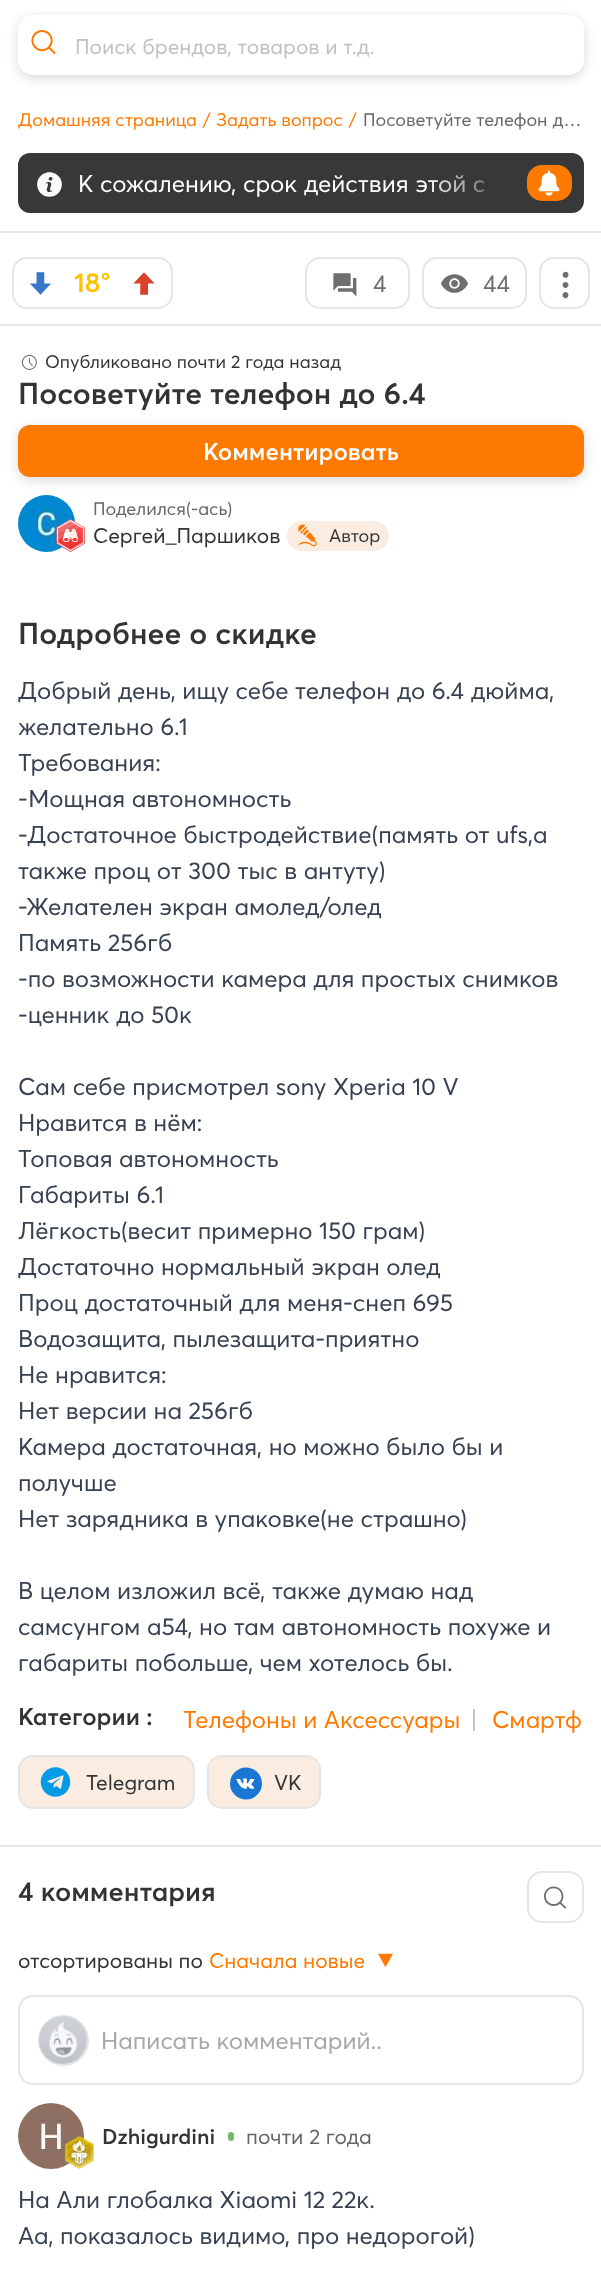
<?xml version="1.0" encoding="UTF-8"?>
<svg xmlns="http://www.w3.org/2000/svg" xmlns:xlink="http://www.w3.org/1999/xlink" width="601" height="2271">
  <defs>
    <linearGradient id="g1" gradientUnits="userSpaceOnUse" x1="426" y1="183" x2="516" y2="183"><stop offset="0" stop-color="#383838" stop-opacity="0" /><stop offset="1" stop-color="#383838" /></linearGradient>
  </defs>
  <rect width="100%" height="100%" fill="#ffffff" />
  <rect x="18" y="18" width="566" height="60" rx="15" fill="#000000" fill-opacity="0.15" filter="blur(6px)" />
  <rect x="18" y="15" width="566" height="60" rx="15" fill="#ffffff" />
  <image x="31" y="30" width="25" height="24" xlink:href="image1.png" />
  <rect x="18" y="153" width="566" height="60" rx="12" fill="#383838" />
  <image x="37" y="172" width="25" height="25" xlink:href="image2.png" />
  <rect x="527" y="165" width="45" height="36" rx="15" fill="#fe7900" />
  <image x="538" y="170" width="22" height="26" xlink:href="image3.png" />
  <rect y="231" width="601" height="2" fill="#e5e5e5" />
  <rect x="13" y="258" width="159" height="50" rx="14" fill="none" stroke="#e5e5e5" stroke-width="2" />
  <image x="30" y="272" width="21" height="23" xlink:href="image4.png" />
  <image x="133" y="272" width="22" height="23" xlink:href="image5.png" />
  <rect x="306" y="258" width="103" height="50" rx="14" fill="none" stroke="#e5e5e5" stroke-width="2" />
  <image x="333" y="273" width="24" height="24" xlink:href="image6.png" />
  <rect x="423" y="258" width="103" height="50" rx="14" fill="none" stroke="#e5e5e5" stroke-width="2" />
  <image x="441" y="274" width="27" height="19" xlink:href="image7.png" />
  <rect x="540" y="258" width="49" height="50" rx="14" fill="none" stroke="#e5e5e5" stroke-width="2" />
  <image x="562" y="271" width="7" height="28" xlink:href="image8.png" />
  <rect y="324" width="601" height="2" fill="#e5e5e5" />
  <image x="21" y="354" width="16" height="16" xlink:href="image9.png" />
  <rect x="18" y="428" width="566" height="52" rx="12" fill="#000000" fill-opacity="0.15" filter="blur(6px)" />
  <rect x="18" y="425" width="566" height="52" rx="12" fill="#fe7900" />
  <image x="18" y="495" width="57" height="57" xlink:href="image10.png" />
  <image x="56" y="519" width="29" height="33" xlink:href="image11.png" />
  <rect x="287" y="521" width="102" height="30" rx="15" fill="#faece1" />
  <image x="298" y="524" width="19" height="23" xlink:href="image12.png" />
  <rect x="473" y="1709" width="2" height="22" fill="#c1c1c1" />
  <rect x="19" y="1756" width="175" height="52" rx="14" fill="#faece1" stroke="#e5e5e5" stroke-width="2" />
  <image x="40" y="1767" width="31" height="30" xlink:href="image13.png" />
  <rect x="208" y="1756" width="112" height="52" rx="14" fill="#faece1" stroke="#e5e5e5" stroke-width="2" />
  <image x="230" y="1767" width="32" height="33" xlink:href="image14.png" />
  <rect y="1845" width="601" height="2" fill="#e5e5e5" />
  <rect x="528" y="1872" width="55" height="50" rx="14" fill="none" stroke="#e5e5e5" stroke-width="2" />
  <image x="544" y="1886" width="22" height="23" xlink:href="image15.png" />
  <image x="378" y="1953" width="15" height="15" xlink:href="image16.png" />
  <rect x="19" y="1996" width="564" height="88" rx="14" fill="none" stroke="#e5e5e5" stroke-width="2" />
  <circle cx="63.5" cy="2040.5" r="24.5" fill="none" stroke="#e5e5e5" stroke-width="2" />
  <image x="39" y="2016" width="48" height="48" xlink:href="image17.png" />
  <image x="18" y="2103" width="66" height="66" xlink:href="image18.png" />
  <image x="64" y="2136" width="31" height="33" xlink:href="image19.png" />
  <rect x="228" y="2132" width="6" height="9" rx="3" fill="#72b86d" />
  <text x="75" y="54" style="font-family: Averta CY; font-size: 21px; fill: #c1c1c1">Поиск брендов, товаров и т.д.</text>
  <text x="18" y="126" style="font-family: Averta CY; font-size: 18px; fill: #fe7900">Домашняя страница</text>
  <text x="203" y="126" style="font-family: Averta CY; font-size: 18px; fill: #fe7900">/</text>
  <text x="216" y="126" style="font-family: Averta CY; font-size: 18px; fill: #fe7900">Задать вопрос</text>
  <text x="349" y="126" style="font-family: Averta CY; font-size: 18px; fill: #fe7900">/</text>
  <text x="363" y="126" style="font-family: Averta CY; font-size: 18px; fill: #666666">Посоветуйте телефон д…</text>
  <text x="78" y="192" style="font-family: Averta CY; font-size: 24px; fill: #ffffff">К сожалению, срок действия этой с</text>
  <rect x="428" y="175" width="57" height="18" fill="url(#g1)" />
  <text x="74" y="292" style="font-family: Averta CY; font-size: 27px; font-weight: 600; fill: #ffc000">18°</text>
  <text x="373" y="292" style="font-family: Averta CY; font-size: 24px; fill: #6f6f6f">4</text>
  <text x="483" y="292" style="font-family: Averta CY; font-size: 24px; fill: #6f6f6f">44</text>
  <text x="45" y="368" style="font-family: Averta CY; font-size: 18px; fill: #333333">Опубликовано почти 2 года назад</text>
  <text x="18" y="404" style="font-family: Averta CY; font-size: 30px; font-weight: 600; fill: #333333">Посоветуйте телефон до 6.4</text>
  <text x="203" y="460" style="font-family: Averta CY; font-size: 24px; font-weight: 600; fill: #ffffff">Комментировать</text>
  <text x="93" y="515" style="font-family: Averta CY; font-size: 18px; fill: #666666">Поделился(-ась)</text>
  <text x="93" y="543" style="font-family: Averta CY; font-size: 21px; fill: #333333">Сергей_Паршиков</text>
  <text x="329" y="542" style="font-family: Averta CY; font-size: 18px; fill: #333333">Автор</text>
  <text x="18" y="644" style="font-family: Averta CY; font-size: 30px; font-weight: 600; fill: #333333">Подробнее о скидке</text>
  <text x="18" y="699" style="font-family: Averta CY; font-size: 24px; fill: #374151">Добрый день, ищу себе телефон до 6.4 дюйма,</text>
  <text x="18" y="735" style="font-family: Averta CY; font-size: 24px; fill: #374151">желательно 6.1</text>
  <text x="18" y="771" style="font-family: Averta CY; font-size: 24px; fill: #374151">Требования:</text>
  <text x="18" y="807" style="font-family: Averta CY; font-size: 24px; fill: #374151">-Мощная автономность</text>
  <text x="18" y="843" style="font-family: Averta CY; font-size: 24px; fill: #374151">-Достаточное быстродействие(память от ufs,а</text>
  <text x="18" y="879" style="font-family: Averta CY; font-size: 24px; fill: #374151">также проц от 300 тыс в антуту)</text>
  <text x="18" y="915" style="font-family: Averta CY; font-size: 24px; fill: #374151">-Желателен экран амолед/олед</text>
  <text x="18" y="951" style="font-family: Averta CY; font-size: 24px; fill: #374151">Память 256гб</text>
  <text x="18" y="987" style="font-family: Averta CY; font-size: 24px; fill: #374151">-по возможности камера для простых снимков</text>
  <text x="18" y="1023" style="font-family: Averta CY; font-size: 24px; fill: #374151">-ценник до 50к</text>
  <text x="18" y="1095" style="font-family: Averta CY; font-size: 24px; fill: #374151">Сам себе присмотрел sony Xperia 10 V</text>
  <text x="18" y="1131" style="font-family: Averta CY; font-size: 24px; fill: #374151">Нравится в нём:</text>
  <text x="18" y="1167" style="font-family: Averta CY; font-size: 24px; fill: #374151">Топовая автономность</text>
  <text x="18" y="1203" style="font-family: Averta CY; font-size: 24px; fill: #374151">Габариты 6.1</text>
  <text x="18" y="1239" style="font-family: Averta CY; font-size: 24px; fill: #374151">Лёгкость(весит примерно 150 грам)</text>
  <text x="18" y="1275" style="font-family: Averta CY; font-size: 24px; fill: #374151">Достаточно нормальный экран олед</text>
  <text x="18" y="1311" style="font-family: Averta CY; font-size: 24px; fill: #374151">Проц достаточный для меня-снеп 695</text>
  <text x="18" y="1347" style="font-family: Averta CY; font-size: 24px; fill: #374151">Водозащита, пылезащита-приятно</text>
  <text x="18" y="1383" style="font-family: Averta CY; font-size: 24px; fill: #374151">Не нравится:</text>
  <text x="18" y="1419" style="font-family: Averta CY; font-size: 24px; fill: #374151">Нет версии на 256гб</text>
  <text x="18" y="1455" style="font-family: Averta CY; font-size: 24px; fill: #374151">Камера достаточная, но можно было бы и</text>
  <text x="18" y="1491" style="font-family: Averta CY; font-size: 24px; fill: #374151">получше</text>
  <text x="18" y="1527" style="font-family: Averta CY; font-size: 24px; fill: #374151">Нет зарядника в упаковке(не страшно)</text>
  <text x="18" y="1599" style="font-family: Averta CY; font-size: 24px; fill: #374151">В целом изложил всё, также думаю над</text>
  <text x="18" y="1635" style="font-family: Averta CY; font-size: 24px; fill: #374151">самсунгом а54, но там автономность похуже и</text>
  <text x="18" y="1671" style="font-family: Averta CY; font-size: 24px; fill: #374151">габариты побольше, чем хотелось бы.</text>
  <text x="18" y="1725" style="font-family: Averta CY; font-size: 24px; font-weight: 600; fill: #333333">Категории :</text>
  <text x="183" y="1728" style="font-family: Averta CY; font-size: 24px; fill: #fe7900">Телефоны и Аксессуары</text>
  <text x="492" y="1728" style="font-family: Averta CY; font-size: 24px; fill: #fe7900">Смартф</text>
  <text x="86" y="1790" style="font-family: Averta CY; font-size: 21px; fill: #333333">Telegram</text>
  <text x="274" y="1790" style="font-family: Averta CY; font-size: 21px; fill: #333333">VK</text>
  <text x="18" y="1901" style="font-family: Averta CY; font-size: 27px; font-weight: 600; fill: #333333">4 комментария</text>
  <text x="18" y="1968" style="font-family: Averta CY; font-size: 21px; fill: #333333">отсортированы по</text>
  <text x="209" y="1968" style="font-family: Averta CY; font-size: 21px; fill: #fe7900">Сначала новые</text>
  <text x="101" y="2049" style="font-family: Averta CY; font-size: 24px; fill: #a7a7a7">Написать комментарий..</text>
  <text x="102" y="2144" style="font-family: Averta CY; font-size: 21px; font-weight: 600; fill: #333333">Dzhigurdini</text>
  <text x="246" y="2144" style="font-family: Averta CY; font-size: 21px; fill: #666666">почти 2 года</text>
  <text x="18" y="2208" style="font-family: Averta CY; font-size: 24px; fill: #374151">На Али глобалка Xiaomi 12 22к.</text>
  <text x="18" y="2244" style="font-family: Averta CY; font-size: 24px; fill: #374151">Аа, показалось видимо, про недорогой)</text>
</svg>
